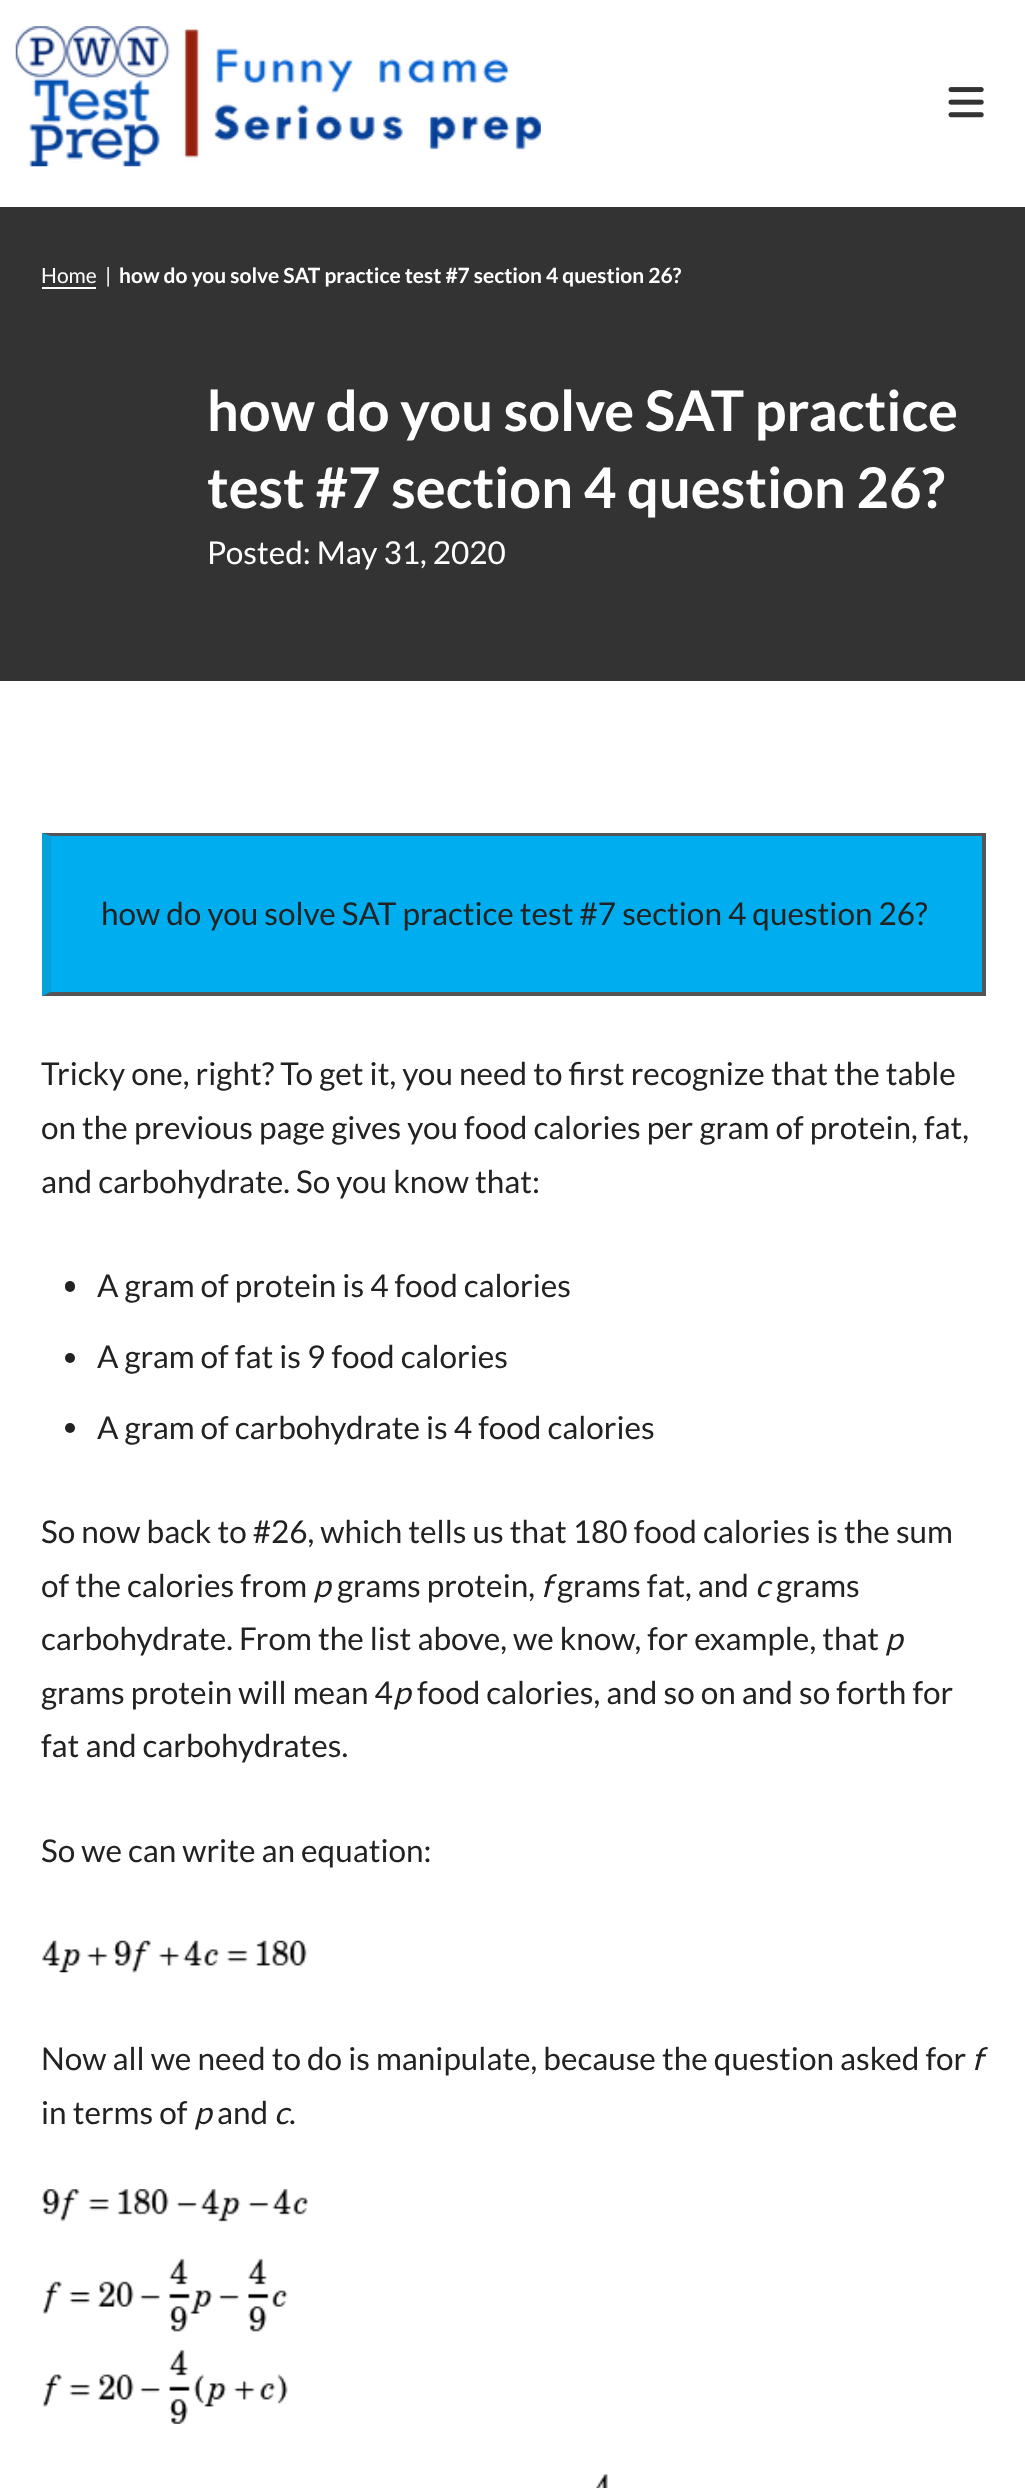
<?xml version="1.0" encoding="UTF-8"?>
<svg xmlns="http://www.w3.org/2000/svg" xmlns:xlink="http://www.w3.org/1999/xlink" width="1025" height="2488">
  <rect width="100%" height="100%" fill="#ffffff" />
  <image x="15" y="26" width="526" height="141" xlink:href="image1.png" />
  <image x="948" y="87" width="36" height="31" xlink:href="image2.png" />
  <rect y="207" width="1025" height="474" fill="#333333" />
  <rect x="42" y="287" width="54" height="2" fill="#ffffff" />
  <rect x="42" y="833" width="940" height="163" fill="#00aeef" />
  <path d="M 42 833 h 943 l -3 3 h -931 z" fill="#555555" />
  <rect x="982" y="833" width="4" height="163" fill="#555555" />
  <path d="M 985 996 h -943 l 9 -4 h 931 z" fill="#555555" />
  <path d="M 42 996 v -163 l 9 3 v 156 z" fill="#03543f" fill-opacity="0.13" />
  <rect x="65" y="1281" width="10" height="11" rx="5" fill="#222222" />
  <circle cx="70" cy="1358" r="5" fill="#222222" />
  <circle cx="70" cy="1428" r="5" fill="#222222" />
  <image x="42" y="1940" width="265" height="33" xlink:href="image3.png" />
  <image x="42" y="2189" width="266" height="235" xlink:href="image4.png" />
  <image x="596" y="2474" width="12" height="14" xlink:href="image5.png" />
  <text x="41" y="283" style="font-family: Lato; font-size: 21px; fill: #ffffff">Home</text>
  <text x="105" y="283" style="font-family: Lato; font-size: 21px; fill: #ffffff">|</text>
  <text x="119" y="283" style="font-family: Lato; font-size: 21px; font-weight: bold; fill: #ffffff">how do you solve SAT practice test #7 section 4 question 26?</text>
  <text x="207" y="431" style="font-family: Lato; font-size: 56px; font-weight: bold; fill: #ffffff">how do you solve SAT practice</text>
  <text x="207" y="508" style="font-family: Lato; font-size: 56px; font-weight: bold; fill: #ffffff">test #7 section 4 question 26?</text>
  <text x="207" y="564" style="font-family: Lato; font-size: 31.5px; fill: #ffffff">Posted: May 31, 2020</text>
  <text x="101" y="925" style="font-family: Lato; font-size: 31.5px; fill: #222222">how do you solve SAT practice test #7 section 4 question 26?</text>
  <text x="41" y="1085" style="font-family: Lato; font-size: 31.5px; fill: #222222">Tricky one, right? To get it, you need to first recognize that the table</text>
  <text x="41" y="1139" style="font-family: Lato; font-size: 31.5px; fill: #222222">on the previous page gives you food calories per gram of protein, fat,</text>
  <text x="41" y="1193" style="font-family: Lato; font-size: 31.5px; fill: #222222">and carbohydrate. So you know that:</text>
  <text x="97" y="1297" style="font-family: Lato; font-size: 31.5px; fill: #222222">A gram of protein is 4 food calories</text>
  <text x="97" y="1368" style="font-family: Lato; font-size: 31.5px; fill: #222222">A gram of fat is 9 food calories</text>
  <text x="97" y="1439" style="font-family: Lato; font-size: 31.5px; fill: #222222">A gram of carbohydrate is 4 food calories</text>
  <text x="41" y="1543" style="font-family: Lato; font-size: 31.5px; fill: #222222">So now back to #26, which tells us that 180 food calories is the sum</text>
  <text x="41" y="1597" style="font-family: Lato; font-size: 31.5px; fill: #222222">of the calories from</text>
  <text x="313" y="1597" style="font-family: Lato; font-size: 31.5px; font-style: italic; fill: #222222">p</text>
  <text x="337" y="1597" style="font-family: Lato; font-size: 31.5px; fill: #222222">grams protein,</text>
  <text x="541" y="1597" style="font-family: Lato; font-size: 31.5px; font-style: italic; fill: #222222">f</text>
  <text x="557" y="1597" style="font-family: Lato; font-size: 31.5px; fill: #222222">grams fat, and</text>
  <text x="755" y="1597" style="font-family: Lato; font-size: 31.5px; font-style: italic; fill: #222222">c</text>
  <text x="776" y="1597" style="font-family: Lato; font-size: 31.5px; fill: #222222">grams</text>
  <text x="41" y="1650" style="font-family: Lato; font-size: 31.5px; fill: #222222">carbohydrate. From the list above, we know, for example, that</text>
  <text x="885" y="1650" style="font-family: Lato; font-size: 31.5px; font-style: italic; fill: #222222">p</text>
  <text x="41" y="1704" style="font-family: Lato; font-size: 31.5px; fill: #222222">grams protein will mean 4</text>
  <text x="393" y="1704" style="font-family: Lato; font-size: 31.5px; font-style: italic; fill: #222222">p</text>
  <text x="417" y="1704" style="font-family: Lato; font-size: 31.5px; fill: #222222">food calories, and so on and so forth for</text>
  <text x="41" y="1757" style="font-family: Lato; font-size: 31.5px; fill: #222222">fat and carbohydrates.</text>
  <text x="41" y="1862" style="font-family: Lato; font-size: 31.5px; fill: #222222">So we can write an equation:</text>
  <text x="41" y="2070" style="font-family: Lato; font-size: 31.5px; fill: #222222">Now all we need to do is manipulate, because the question asked for</text>
  <text x="972" y="2070" style="font-family: Lato; font-size: 31.5px; font-style: italic; fill: #222222">f</text>
  <text x="41" y="2124" style="font-family: Lato; font-size: 31.5px; fill: #222222">in terms of</text>
  <text x="194" y="2124" style="font-family: Lato; font-size: 31.5px; font-style: italic; fill: #222222">p</text>
  <text x="217" y="2124" style="font-family: Lato; font-size: 31.5px; fill: #222222">and</text>
  <text x="274" y="2124" style="font-family: Lato; font-size: 31.5px; font-style: italic; fill: #222222">c</text>
  <text x="289" y="2124" style="font-family: Lato; font-size: 31.5px; fill: #222222">.</text>
</svg>
